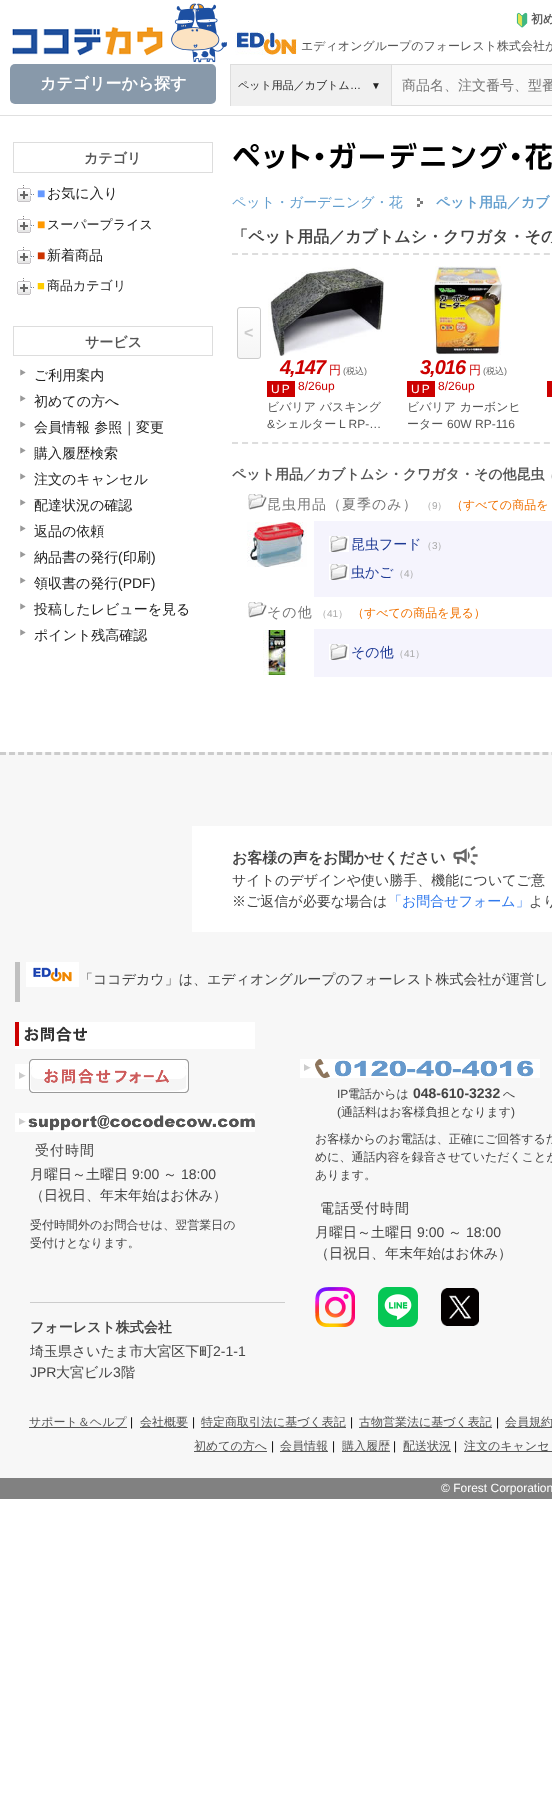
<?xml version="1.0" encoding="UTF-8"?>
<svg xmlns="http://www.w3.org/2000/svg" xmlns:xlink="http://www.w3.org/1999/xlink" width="552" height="1805">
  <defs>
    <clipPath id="clip1"><rect x="230" y="64" width="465" height="42" /></clipPath>
    <clipPath id="clip2"><rect x="237" y="307" width="24" height="52" rx="3" /></clipPath>
    <linearGradient id="g1" gradientUnits="userSpaceOnUse" x1="249" y1="308" x2="249" y2="358"><stop offset="0" stop-color="#ffffff" /><stop offset="1" stop-color="#f5f5f5" /></linearGradient>
  </defs>
  <rect width="100%" height="100%" fill="#ffffff" />
  <rect y="115" width="552" height="1" fill="#e0e0e0" />
  <image x="171" y="3" width="56" height="60" xlink:href="image1.png" />
  <image x="516" y="12" width="12" height="16" xlink:href="image2.png" />
  <image x="12" y="27" width="151" height="29" xlink:href="image3.png" />
  <image x="235" y="31" width="62" height="24" xlink:href="image4.png" />
  <rect x="10" y="64" width="206" height="40" rx="5" fill="#8899aa" />
  <rect x="392" y="65" width="160" height="40" fill="#f9f9f9" />
  <rect x="390.5" y="64.5" width="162" height="41" fill="none" stroke="#dddddd" />
  <rect x="231" y="65" width="160" height="41" fill="#f0f0f0" />
  <g clip-path="url(#clip1)">
    <rect x="230.5" y="64.5" width="161" height="42" fill="none" stroke="#dddddd" />
  </g>
  <rect x="13.5" y="142.5" width="199" height="30" fill="none" stroke="#dddddd" />
  <image x="17" y="185" width="17" height="17" xlink:href="image5.png" />
  <image x="17" y="216" width="17" height="17" xlink:href="image5.png" />
  <image x="17" y="247" width="17" height="17" xlink:href="image5.png" />
  <image x="17" y="278" width="17" height="17" xlink:href="image5.png" />
  <rect x="13.5" y="326.5" width="199" height="29" fill="none" stroke="#dddddd" />
  <image x="20" y="369" width="6" height="7" xlink:href="image6.png" />
  <image x="20" y="395" width="6" height="7" xlink:href="image6.png" />
  <image x="20" y="421" width="6" height="7" xlink:href="image6.png" />
  <image x="20" y="447" width="6" height="7" xlink:href="image6.png" />
  <image x="20" y="473" width="6" height="7" xlink:href="image6.png" />
  <image x="20" y="499" width="6" height="7" xlink:href="image6.png" />
  <image x="20" y="525" width="6" height="7" xlink:href="image6.png" />
  <image x="20" y="551" width="6" height="7" xlink:href="image6.png" />
  <image x="20" y="577" width="6" height="7" xlink:href="image6.png" />
  <image x="20" y="603" width="6" height="7" xlink:href="image6.png" />
  <image x="20" y="629" width="6" height="7" xlink:href="image6.png" />
  <image x="233" y="142" width="319" height="28" xlink:href="image7.png" />
  <image x="417" y="198" width="6" height="9" xlink:href="image8.png" />
  <path d="M 232 443 h 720" fill="none" stroke="#dddddd" stroke-width="2" stroke-dasharray="6 4.06" />
  <path d="M 232 254 h 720" fill="none" stroke="#dddddd" stroke-width="2" stroke-dasharray="6 4.06" />
  <g clip-path="url(#clip2)">
    <rect x="237" y="308" width="24" height="50" fill="url(#g1)" />
  </g>
  <rect x="237.5" y="307.5" width="23" height="51" rx="2.5" fill="none" stroke="#cccccc" />
  <image x="268" y="267" width="116" height="89" xlink:href="image9.png" />
  <rect x="267" y="381" width="28" height="16" fill="#cc0000" />
  <image x="432" y="266" width="71" height="89" xlink:href="image10.png" />
  <rect x="407" y="381" width="28" height="16" fill="#cc0000" />
  <rect x="547" y="381" width="5" height="16" fill="#cc0000" />
  <image x="248" y="494" width="19" height="16" xlink:href="image11.png" />
  <image x="247" y="522" width="60" height="45" xlink:href="image12.png" />
  <rect x="314" y="521" width="238" height="76" fill="#f5f4fd" />
  <image x="329" y="536" width="20" height="16" xlink:href="image13.png" />
  <image x="329" y="564" width="20" height="16" xlink:href="image13.png" />
  <image x="248" y="602" width="19" height="16" xlink:href="image11.png" />
  <image x="263" y="630" width="24" height="45" xlink:href="image14.png" />
  <rect x="314" y="629" width="238" height="48" fill="#f5f4fd" />
  <image x="329" y="644" width="20" height="16" xlink:href="image13.png" />
  <rect y="752" width="552" height="726" fill="#f7f7f7" />
  <path d="M 0 753.5 h 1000" fill="none" stroke="#cccccc" stroke-width="3" stroke-dasharray="6 3.04" />
  <rect x="192" y="826" width="360" height="106" fill="#ffffff" />
  <image x="453" y="845" width="25" height="21" xlink:href="image15.png" />
  <rect x="15" y="962" width="5" height="40" fill="#c0c0c0" />
  <image x="26" y="962" width="53" height="25" xlink:href="image16.png" />
  <image x="15" y="1022" width="240" height="27" xlink:href="image17.png" />
  <image x="15" y="1059" width="174" height="34" xlink:href="image18.png" />
  <image x="15" y="1113" width="240" height="19" xlink:href="image19.png" />
  <rect x="30" y="1302" width="255" height="1" fill="#cccccc" />
  <image x="300" y="1059" width="240" height="19" xlink:href="image20.png" />
  <image x="315" y="1287" width="40" height="40" xlink:href="image21.png" />
  <image x="378" y="1287" width="40" height="40" xlink:href="image22.png" />
  <image x="441" y="1288" width="38" height="38" xlink:href="image23.png" />
  <rect x="29" y="1427" width="98" height="1" fill="#555555" />
  <rect x="140" y="1427" width="48" height="1" fill="#555555" />
  <rect x="201" y="1427" width="145" height="1" fill="#555555" />
  <rect x="359" y="1427" width="133" height="1" fill="#555555" />
  <rect x="505" y="1427" width="47" height="1" fill="#555555" />
  <rect x="194" y="1451" width="73" height="1" fill="#555555" />
  <rect x="280" y="1451" width="48" height="1" fill="#555555" />
  <rect x="342" y="1451" width="48" height="1" fill="#555555" />
  <rect x="403" y="1451" width="48" height="1" fill="#555555" />
  <rect x="464" y="1451" width="88" height="1" fill="#555555" />
  <rect y="1478" width="552" height="21" fill="#818181" />
  <text x="531" y="23" style="font-family: WenQuanYi Zen Hei; font-size: 12px; font-weight: bold; fill: #5c5c5c">初め</text>
  <text x="301" y="50" style="font-family: WenQuanYi Zen Hei; font-size: 12px; font-weight: 500; fill: #555555">エディオングループのフォーレスト株式会社が</text>
  <text x="40" y="89" style="font-family: WenQuanYi Zen Hei; font-size: 16px; font-weight: bold; fill: #ffffff">カテゴリーから探す</text>
  <text x="238" y="89" style="font-family: WenQuanYi Zen Hei; font-size: 11px; font-weight: 500; fill: #222222">ペット用品／カブトム</text>
  <text x="350" y="89" style="font-family: Liberation Sans; font-size: 11px; fill: #222222">…</text>
  <text x="371" y="89" style="font-family: Liberation Sans; font-size: 10px; fill: #222222">▼</text>
  <text x="402" y="90" style="font-family: WenQuanYi Zen Hei; font-size: 14px; font-weight: 500; fill: #777777">商品名、注文番号、型番</text>
  <text x="84" y="163" style="font-family: WenQuanYi Zen Hei; font-size: 14px; font-weight: bold; fill: #555555">カテゴリ</text>
  <text x="37" y="198" style="font-family: Liberation Sans; font-size: 14px; fill: #6699ff">■</text>
  <text x="47" y="198" style="font-family: WenQuanYi Zen Hei; font-size: 14px; font-weight: 500; fill: #222222">お気に入り</text>
  <text x="37" y="229" style="font-family: Liberation Sans; font-size: 14px; fill: #ff9900">■</text>
  <text x="47" y="229" style="font-family: WenQuanYi Zen Hei; font-size: 13px; font-weight: 500; fill: #222222">スーパープライス</text>
  <text x="37" y="260" style="font-family: Liberation Sans; font-size: 14px; fill: #cc3300">■</text>
  <text x="47" y="260" style="font-family: WenQuanYi Zen Hei; font-size: 14px; font-weight: 500; fill: #222222">新着商品</text>
  <text x="37" y="290" style="font-family: Liberation Sans; font-size: 13px; fill: #ffcc00">■</text>
  <text x="47" y="290" style="font-family: WenQuanYi Zen Hei; font-size: 13px; font-weight: 500; fill: #222222">商品カテゴリ</text>
  <text x="85" y="347" style="font-family: WenQuanYi Zen Hei; font-size: 14px; font-weight: bold; fill: #555555">サービス</text>
  <text x="34" y="380" style="font-family: WenQuanYi Zen Hei; font-size: 14px; font-weight: 500; fill: #222222">ご利用案内</text>
  <text x="34" y="406" style="font-family: WenQuanYi Zen Hei; font-size: 14px; font-weight: 500; fill: #222222">初めての方へ</text>
  <text x="34" y="432" style="font-family: WenQuanYi Zen Hei; font-size: 14px; font-weight: 500; fill: #222222">会員情報 参照｜変更</text>
  <text x="34" y="458" style="font-family: WenQuanYi Zen Hei; font-size: 14px; font-weight: 500; fill: #222222">購入履歴検索</text>
  <text x="34" y="484" style="font-family: WenQuanYi Zen Hei; font-size: 14px; font-weight: 500; fill: #222222">注文のキャンセル</text>
  <text x="34" y="510" style="font-family: WenQuanYi Zen Hei; font-size: 14px; font-weight: 500; fill: #222222">配達状況の確認</text>
  <text x="34" y="536" style="font-family: WenQuanYi Zen Hei; font-size: 14px; font-weight: 500; fill: #222222">返品の依頼</text>
  <text x="34" y="562" style="font-family: WenQuanYi Zen Hei; font-size: 14px; font-weight: 500; fill: #222222">納品書の発行</text>
  <text x="118" y="562" style="font-family: Liberation Sans; font-size: 14px; fill: #222222">(</text>
  <text x="123" y="562" style="font-family: WenQuanYi Zen Hei; font-size: 14px; font-weight: 500; fill: #222222">印刷</text>
  <text x="151" y="562" style="font-family: Liberation Sans; font-size: 14px; fill: #222222">)</text>
  <text x="34" y="588" style="font-family: WenQuanYi Zen Hei; font-size: 14px; font-weight: 500; fill: #222222">領収書の発行</text>
  <text x="118" y="588" style="font-family: Liberation Sans; font-size: 14px; fill: #222222">(PDF)</text>
  <text x="34" y="614" style="font-family: WenQuanYi Zen Hei; font-size: 14px; font-weight: 500; fill: #222222">投稿したレビューを見る</text>
  <text x="34" y="640" style="font-family: WenQuanYi Zen Hei; font-size: 14px; font-weight: 500; fill: #222222">ポイント残高確認</text>
  <text x="232" y="207" style="font-family: WenQuanYi Zen Hei; font-size: 14px; font-weight: 500; fill: #639ece">ペット・ガーデニング・花</text>
  <text x="436" y="207" style="font-family: WenQuanYi Zen Hei; font-size: 14px; font-weight: bold; fill: #639ece">ペット用品／カブ</text>
  <text x="232" y="242" style="font-family: WenQuanYi Zen Hei; font-size: 16px; font-weight: bold; fill: #444444">「ペット用品／カブトムシ・クワガタ・その</text>
  <text x="244" y="338" style="font-family: Liberation Sans; font-size: 16px; font-weight: bold; letter-spacing: 1px; fill: #cccccc">&lt;</text>
  <text x="280" y="374" style="font-family: Liberation Sans; font-size: 20px; font-weight: bold; font-style: italic; letter-spacing: -1px; fill: #cc0000">4,147</text>
  <text x="329" y="374" style="font-family: WenQuanYi Zen Hei; font-size: 12px; font-weight: 500; fill: #cc0000">円</text>
  <text x="343" y="374" style="font-family: Liberation Sans; font-size: 9px; fill: #666666">(</text>
  <text x="346" y="374" style="font-family: WenQuanYi Zen Hei; font-size: 9px; font-weight: 500; fill: #666666">税込</text>
  <text x="364" y="374" style="font-family: Liberation Sans; font-size: 9px; fill: #666666">)</text>
  <text x="271" y="393" style="font-family: Liberation Sans; font-size: 12px; letter-spacing: 2px; fill: #ffffff">UP</text>
  <text x="298" y="390" style="font-family: Liberation Sans; font-size: 12px; fill: #cc0000">8/26up</text>
  <text x="267" y="411" style="font-family: WenQuanYi Zen Hei; font-size: 12px; font-weight: 500; fill: #555555">ビバリア バスキング</text>
  <text x="267" y="428" style="font-family: Liberation Sans; font-size: 12px; fill: #555555">&amp;</text>
  <text x="275" y="428" style="font-family: WenQuanYi Zen Hei; font-size: 12px; font-weight: 500; fill: #555555">シェルター</text>
  <text x="339" y="428" style="font-family: Liberation Sans; font-size: 12px; fill: #555555">L RP-…</text>
  <text x="420" y="374" style="font-family: Liberation Sans; font-size: 20px; font-weight: bold; font-style: italic; letter-spacing: -1px; fill: #cc0000">3,016</text>
  <text x="469" y="374" style="font-family: WenQuanYi Zen Hei; font-size: 12px; font-weight: 500; fill: #cc0000">円</text>
  <text x="483" y="374" style="font-family: Liberation Sans; font-size: 9px; fill: #666666">(</text>
  <text x="486" y="374" style="font-family: WenQuanYi Zen Hei; font-size: 9px; font-weight: 500; fill: #666666">税込</text>
  <text x="504" y="374" style="font-family: Liberation Sans; font-size: 9px; fill: #666666">)</text>
  <text x="411" y="393" style="font-family: Liberation Sans; font-size: 12px; letter-spacing: 2px; fill: #ffffff">UP</text>
  <text x="438" y="390" style="font-family: Liberation Sans; font-size: 12px; fill: #cc0000">8/26up</text>
  <text x="407" y="411" style="font-family: WenQuanYi Zen Hei; font-size: 12px; font-weight: 500; fill: #555555">ビバリア カーボンヒ</text>
  <text x="407" y="428" style="font-family: WenQuanYi Zen Hei; font-size: 12px; font-weight: 500; fill: #555555">ーター</text>
  <text x="447" y="428" style="font-family: Liberation Sans; font-size: 12px; fill: #555555">60W RP-116</text>
  <text x="232" y="479" style="font-family: WenQuanYi Zen Hei; font-size: 14px; font-weight: bold; fill: #555555">ペット用品／カブトムシ・クワガタ・その他昆虫</text>
  <text x="545" y="479" style="font-family: WenQuanYi Zen Hei; font-size: 10px; font-weight: 500; fill: #a9a9a9">（</text>
  <text x="267" y="509" style="font-family: WenQuanYi Zen Hei; font-size: 14px; font-weight: 500; letter-spacing: 1px; fill: #777777">昆虫用品（夏季のみ）</text>
  <text x="422" y="509" style="font-family: WenQuanYi Zen Hei; font-size: 10px; font-weight: 500; fill: #a9a9a9">（</text>
  <text x="432" y="509" style="font-family: Liberation Sans; font-size: 10px; fill: #a9a9a9">9</text>
  <text x="437" y="509" style="font-family: WenQuanYi Zen Hei; font-size: 10px; font-weight: 500; fill: #a9a9a9">）</text>
  <text x="451" y="509" style="font-family: WenQuanYi Zen Hei; font-size: 12px; font-weight: 500; fill: #f07100">（すべての商品を</text>
  <text x="351" y="549" style="font-family: WenQuanYi Zen Hei; font-size: 14px; font-weight: 500; fill: #1d3994">昆虫フード</text>
  <text x="422" y="549" style="font-family: WenQuanYi Zen Hei; font-size: 10px; font-weight: 500; fill: #a9a9a9">（</text>
  <text x="432" y="549" style="font-family: Liberation Sans; font-size: 10px; fill: #a9a9a9">3</text>
  <text x="437" y="549" style="font-family: WenQuanYi Zen Hei; font-size: 10px; font-weight: 500; fill: #a9a9a9">）</text>
  <text x="351" y="577" style="font-family: WenQuanYi Zen Hei; font-size: 14px; font-weight: 500; fill: #1d3994">虫かご</text>
  <text x="394" y="577" style="font-family: WenQuanYi Zen Hei; font-size: 10px; font-weight: 500; fill: #a9a9a9">（</text>
  <text x="404" y="577" style="font-family: Liberation Sans; font-size: 10px; fill: #a9a9a9">4</text>
  <text x="409" y="577" style="font-family: WenQuanYi Zen Hei; font-size: 10px; font-weight: 500; fill: #a9a9a9">）</text>
  <text x="267" y="617" style="font-family: WenQuanYi Zen Hei; font-size: 14px; font-weight: 500; letter-spacing: 1px; fill: #777777">その他</text>
  <text x="317" y="617" style="font-family: WenQuanYi Zen Hei; font-size: 10px; font-weight: 500; fill: #a9a9a9">（</text>
  <text x="327" y="617" style="font-family: Liberation Sans; font-size: 10px; fill: #a9a9a9">41</text>
  <text x="338" y="617" style="font-family: WenQuanYi Zen Hei; font-size: 10px; font-weight: 500; fill: #a9a9a9">）</text>
  <text x="352" y="617" style="font-family: WenQuanYi Zen Hei; font-size: 12px; font-weight: 500; fill: #f07100">（すべての商品を見る）</text>
  <text x="351" y="657" style="font-family: WenQuanYi Zen Hei; font-size: 14px; font-weight: 500; fill: #1d3994">その他</text>
  <text x="394" y="657" style="font-family: WenQuanYi Zen Hei; font-size: 10px; font-weight: 500; fill: #a9a9a9">（</text>
  <text x="404" y="657" style="font-family: Liberation Sans; font-size: 10px; fill: #a9a9a9">41</text>
  <text x="415" y="657" style="font-family: WenQuanYi Zen Hei; font-size: 10px; font-weight: 500; fill: #a9a9a9">）</text>
  <text x="232" y="863" style="font-family: WenQuanYi Zen Hei; font-size: 15px; font-weight: bold; fill: #444444">お客様の声をお聞かせください</text>
  <text x="232" y="885" style="font-family: WenQuanYi Zen Hei; font-size: 14px; font-weight: 500; fill: #444444">サイトのデザインや使い勝手、機能についてご意</text>
  <text x="232" y="906" style="font-family: WenQuanYi Zen Hei; font-size: 14px; font-weight: 500; fill: #444444">※ご返信が必要な場合は</text>
  <text x="388" y="906" style="font-family: WenQuanYi Zen Hei; font-size: 14px; font-weight: 500; fill: #3079ed">「お問合せフォーム」</text>
  <text x="529" y="906" style="font-family: WenQuanYi Zen Hei; font-size: 14px; font-weight: 500; fill: #444444">より</text>
  <text x="79" y="984" style="font-family: WenQuanYi Zen Hei; font-size: 14px; font-weight: 500; fill: #444444">「ココデカウ」は、エディオングループのフォーレスト株式会社が運営し</text>
  <text x="35" y="1155" style="font-family: WenQuanYi Zen Hei; font-size: 14px; font-weight: 500; letter-spacing: 1px; fill: #444444">受付時間</text>
  <text x="30" y="1179" style="font-family: WenQuanYi Zen Hei; font-size: 14px; font-weight: 500; fill: #444444">月曜日～土曜日</text>
  <text x="132" y="1179" style="font-family: Liberation Sans; font-size: 14px; fill: #444444">9:00</text>
  <text x="163" y="1179" style="font-family: WenQuanYi Zen Hei; font-size: 14px; font-weight: 500; fill: #444444">～</text>
  <text x="181" y="1179" style="font-family: Liberation Sans; font-size: 14px; fill: #444444">18:00</text>
  <text x="30" y="1200" style="font-family: WenQuanYi Zen Hei; font-size: 14px; font-weight: 500; fill: #444444">（日祝日、年末年始はお休み）</text>
  <text x="30" y="1229" style="font-family: WenQuanYi Zen Hei; font-size: 12px; font-weight: 500; fill: #444444">受付時間外のお問合せは、翌営業日の</text>
  <text x="30" y="1247" style="font-family: WenQuanYi Zen Hei; font-size: 12px; font-weight: 500; fill: #444444">受付けとなります。</text>
  <text x="30" y="1332" style="font-family: WenQuanYi Zen Hei; font-size: 14px; font-weight: bold; fill: #444444">フォーレスト株式会社</text>
  <text x="30" y="1356" style="font-family: WenQuanYi Zen Hei; font-size: 14px; font-weight: 500; fill: #444444">埼玉県さいたま市大宮区下町</text>
  <text x="213" y="1356" style="font-family: Liberation Sans; font-size: 14px; fill: #444444">2-1-1</text>
  <text x="30" y="1377" style="font-family: Liberation Sans; font-size: 14px; fill: #444444">JPR</text>
  <text x="56" y="1377" style="font-family: WenQuanYi Zen Hei; font-size: 14px; font-weight: 500; fill: #444444">大宮ビル</text>
  <text x="113" y="1377" style="font-family: Liberation Sans; font-size: 14px; fill: #444444">3</text>
  <text x="121" y="1377" style="font-family: WenQuanYi Zen Hei; font-size: 14px; font-weight: 500; fill: #444444">階</text>
  <text x="337" y="1098" style="font-family: Liberation Sans; font-size: 12px; fill: #444444">IP</text>
  <text x="348" y="1098" style="font-family: WenQuanYi Zen Hei; font-size: 12px; font-weight: 500; fill: #444444">電話からは</text>
  <text x="413" y="1098" style="font-family: Liberation Sans; font-size: 14px; font-weight: bold; fill: #444444">048-610-3232</text>
  <text x="503" y="1098" style="font-family: WenQuanYi Zen Hei; font-size: 12px; font-weight: 500; fill: #444444">へ</text>
  <text x="337" y="1116" style="font-family: Liberation Sans; font-size: 12px; fill: #444444">(</text>
  <text x="341" y="1116" style="font-family: WenQuanYi Zen Hei; font-size: 12px; font-weight: 500; fill: #444444">通話料はお客様負担となります</text>
  <text x="511" y="1116" style="font-family: Liberation Sans; font-size: 12px; fill: #444444">)</text>
  <text x="315" y="1143" style="font-family: WenQuanYi Zen Hei; font-size: 12px; font-weight: 500; fill: #444444">お客様からのお電話は、正確にご回答するた</text>
  <text x="315" y="1161" style="font-family: WenQuanYi Zen Hei; font-size: 12px; font-weight: 500; fill: #444444">めに、通話内容を録音させていただくことが</text>
  <text x="315" y="1179" style="font-family: WenQuanYi Zen Hei; font-size: 12px; font-weight: 500; fill: #444444">あります。</text>
  <text x="320" y="1213" style="font-family: WenQuanYi Zen Hei; font-size: 14px; font-weight: 500; letter-spacing: 1px; fill: #444444">電話受付時間</text>
  <text x="315" y="1237" style="font-family: WenQuanYi Zen Hei; font-size: 14px; font-weight: 500; fill: #444444">月曜日～土曜日</text>
  <text x="417" y="1237" style="font-family: Liberation Sans; font-size: 14px; fill: #444444">9:00</text>
  <text x="448" y="1237" style="font-family: WenQuanYi Zen Hei; font-size: 14px; font-weight: 500; fill: #444444">～</text>
  <text x="466" y="1237" style="font-family: Liberation Sans; font-size: 14px; fill: #444444">18:00</text>
  <text x="315" y="1258" style="font-family: WenQuanYi Zen Hei; font-size: 14px; font-weight: 500; fill: #444444">（日祝日、年末年始はお休み）</text>
  <text x="29" y="1426" style="font-family: WenQuanYi Zen Hei; font-size: 12px; font-weight: 500; fill: #555555">サポート＆ヘルプ</text>
  <text x="130" y="1426" style="font-family: Liberation Sans; font-size: 12px; fill: #000000">|</text>
  <text x="140" y="1426" style="font-family: WenQuanYi Zen Hei; font-size: 12px; font-weight: 500; fill: #555555">会社概要</text>
  <text x="192" y="1426" style="font-family: Liberation Sans; font-size: 12px; fill: #000000">|</text>
  <text x="201" y="1426" style="font-family: WenQuanYi Zen Hei; font-size: 12px; font-weight: 500; fill: #555555">特定商取引法に基づく表記</text>
  <text x="350" y="1426" style="font-family: Liberation Sans; font-size: 12px; fill: #000000">|</text>
  <text x="359" y="1426" style="font-family: WenQuanYi Zen Hei; font-size: 12px; font-weight: 500; fill: #555555">古物営業法に基づく表記</text>
  <text x="496" y="1426" style="font-family: Liberation Sans; font-size: 12px; fill: #000000">|</text>
  <text x="505" y="1426" style="font-family: WenQuanYi Zen Hei; font-size: 12px; font-weight: 500; fill: #555555">会員規約</text>
  <text x="194" y="1450" style="font-family: WenQuanYi Zen Hei; font-size: 12px; font-weight: 500; fill: #555555">初めての方へ</text>
  <text x="271" y="1450" style="font-family: Liberation Sans; font-size: 12px; fill: #000000">|</text>
  <text x="280" y="1450" style="font-family: WenQuanYi Zen Hei; font-size: 12px; font-weight: 500; fill: #555555">会員情報</text>
  <text x="332" y="1450" style="font-family: Liberation Sans; font-size: 12px; fill: #000000">|</text>
  <text x="342" y="1450" style="font-family: WenQuanYi Zen Hei; font-size: 12px; font-weight: 500; fill: #555555">購入履歴</text>
  <text x="393" y="1450" style="font-family: Liberation Sans; font-size: 12px; fill: #000000">|</text>
  <text x="403" y="1450" style="font-family: WenQuanYi Zen Hei; font-size: 12px; font-weight: 500; fill: #555555">配送状況</text>
  <text x="454" y="1450" style="font-family: Liberation Sans; font-size: 12px; fill: #000000">|</text>
  <text x="464" y="1450" style="font-family: WenQuanYi Zen Hei; font-size: 12px; font-weight: 500; fill: #555555">注文のキャンセ</text>
  <text x="441" y="1492" style="font-family: Liberation Sans; font-size: 12px; fill: #ffffff">© Forest Corporation</text>
</svg>
